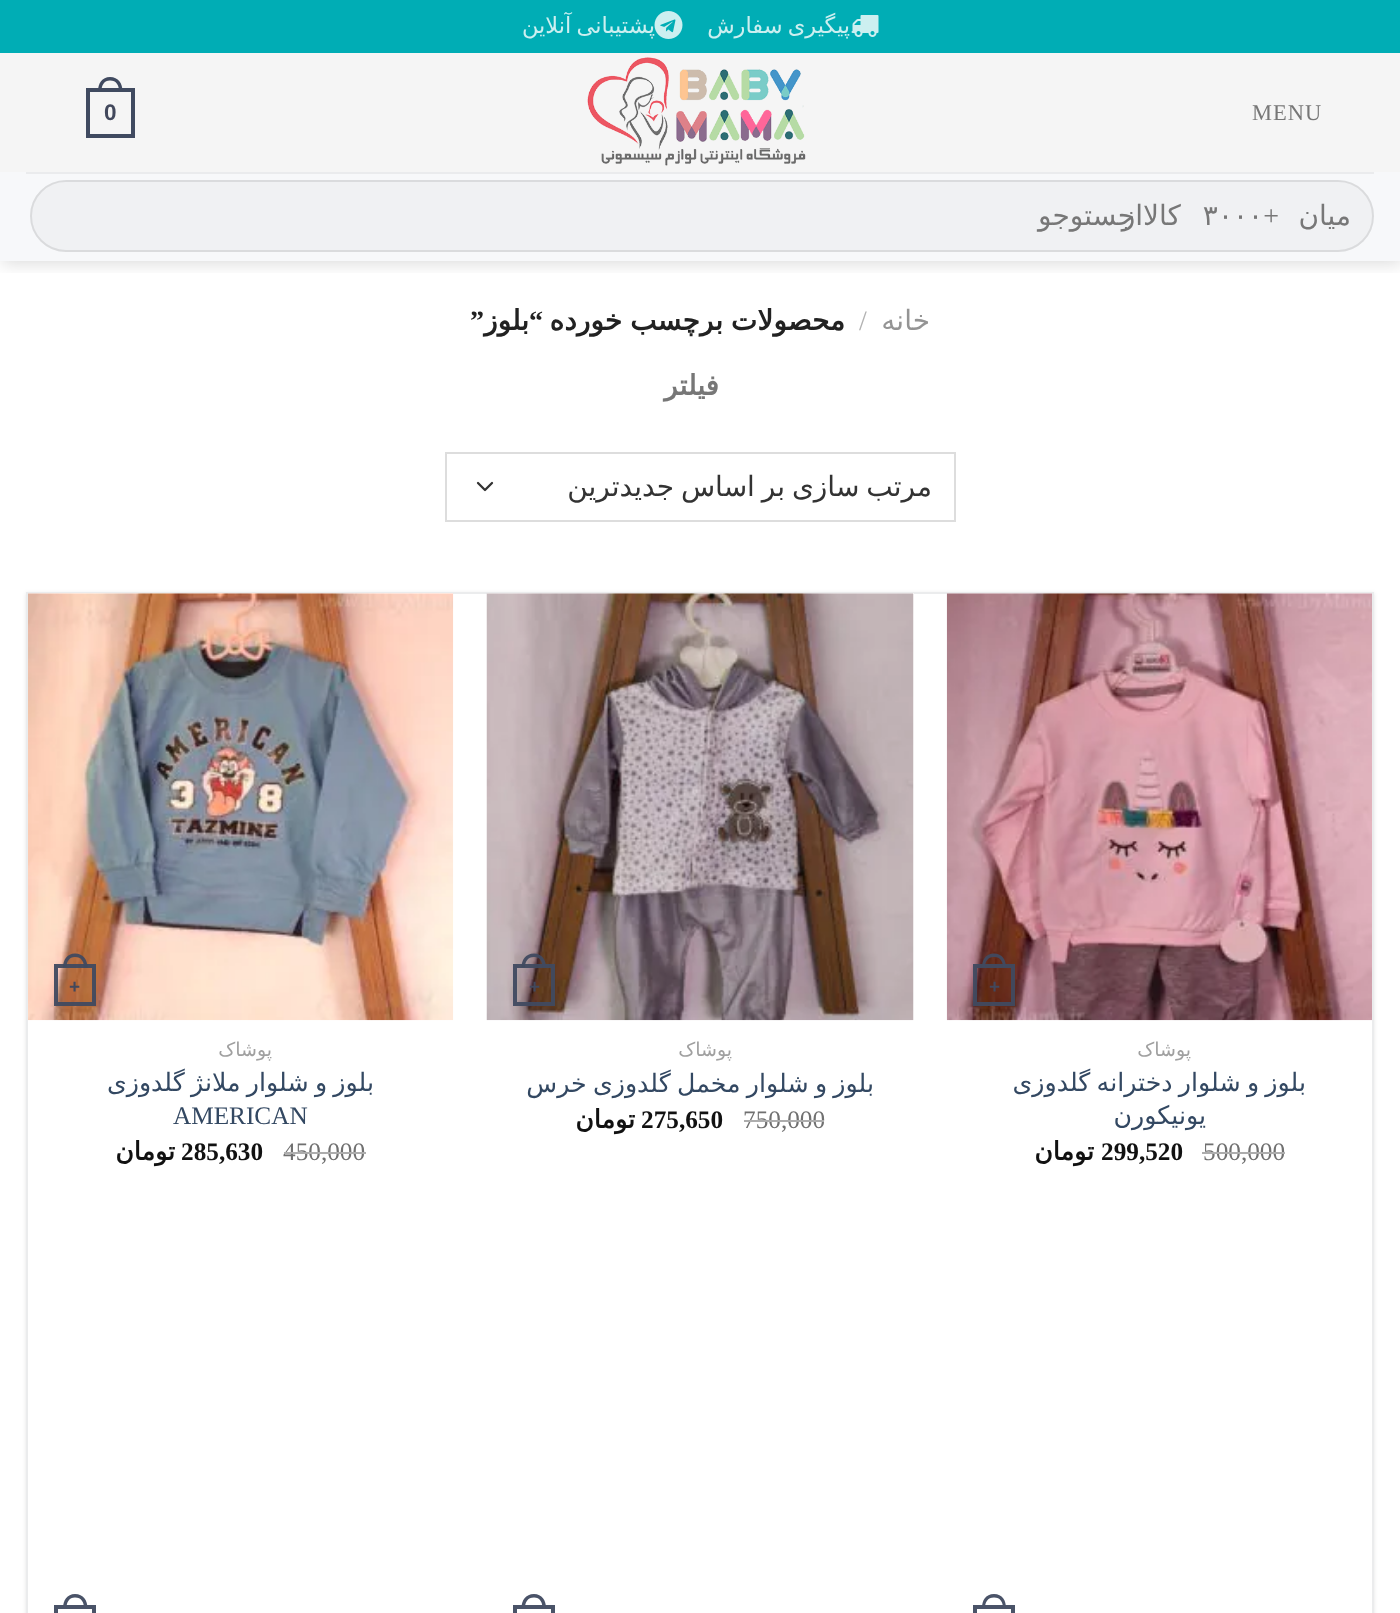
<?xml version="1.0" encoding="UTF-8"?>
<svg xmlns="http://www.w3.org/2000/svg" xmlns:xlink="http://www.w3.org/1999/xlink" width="1400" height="1613">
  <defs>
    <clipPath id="clip1"><rect x="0" y="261" width="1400" height="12" /></clipPath>
  </defs>
  <rect width="100%" height="100%" fill="#ffffff" />
  <g clip-path="url(#clip1)">
    <rect x="2" y="2" width="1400" height="261" fill="#000000" fill-opacity="0.15" filter="blur(9px)" />
  </g>
  <rect width="1400" height="53" fill="#00adb5" />
  <image x="851" y="15" width="28" height="22" xlink:href="image1.png" />
  <rect y="53" width="1400" height="119" fill="#f2f2f2" fill-opacity="0.75" />
  <image x="587" y="57" width="219" height="109" xlink:href="image3.png" />
  <rect x="88" y="90" width="45" height="46" fill="none" stroke="#404a60" stroke-width="4" />
  <path d="M 110 77 c 8.5 0 12.5 6.5 12.5 14 h -24.5 c 0 -7.5 4 -14 12 -14 z m 0 3.5 c 6.5 0 9 5 9 10.5 h -17.5 c 0 -5.5 2.5 -10.5 8.5 -10.5 z" fill="#404a60" fill-rule="evenodd" />
  <rect y="172" width="1400" height="89" fill="#f7f8fa" />
  <rect x="26" y="172" width="1348" height="2" fill="#eaebed" />
  <rect x="30" y="180" width="1344" height="72" rx="36" fill="#f0f1f3" />
  <rect x="31" y="181" width="1342" height="70" rx="35" fill="none" stroke="#000000" stroke-opacity="0.09" stroke-width="2" />
  <path d="M 478 483 l 7 7 l 7 -7" fill="none" stroke="#333333" stroke-width="2.3" stroke-linecap="round" stroke-linejoin="round" />
  <rect x="446" y="453" width="509" height="68" fill="none" stroke="#dddddd" stroke-width="2" />
  <rect x="26" y="593" width="1348" height="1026" fill="#000000" fill-opacity="0.1" filter="blur(2px)" />
  <rect x="27" y="593" width="1346" height="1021" fill="#ffffff" stroke="#ebeced" stroke-width="2" />
  <rect x="947" y="593" width="425" height="1" fill="#ffffff" />
  <image x="946" y="593" width="426" height="428" xlink:href="image4.png" />
  <rect x="975" y="966" width="38" height="38" fill="none" stroke="#404a60" stroke-opacity="0.95" stroke-width="4" />
  <path d="M 994 953.5 c 8.5 0 12 6.5 12 14 h -24 c 0 -7.5 3.5 -14 12 -14 z m 0 3.5 c 6.5 0 9 5 9 10.5 h -18 c 0 -5.5 2.5 -10.5 9 -10.5 z" fill="#404a60" fill-opacity="0.95" fill-rule="evenodd" />
  <rect x="487" y="593" width="427" height="1" fill="#ffffff" />
  <image x="486" y="593" width="428" height="428" xlink:href="image5.png" />
  <rect x="515" y="966" width="38" height="38" fill="none" stroke="#404a60" stroke-opacity="0.95" stroke-width="4" />
  <path d="M 534 953.5 c 8 0 12 6.5 12 14 h -24.5 c 0 -7.5 4 -14 12.5 -14 z m 0 3.5 c 6 0 8.5 5 8.5 10.5 h -17.5 c 0 -5.5 2.5 -10.5 9 -10.5 z" fill="#404a60" fill-opacity="0.95" fill-rule="evenodd" />
  <rect x="28" y="593" width="425" height="1" fill="#ffffff" />
  <image x="28" y="593" width="426" height="428" xlink:href="image6.png" />
  <rect x="56" y="966" width="38" height="38" fill="none" stroke="#404a60" stroke-opacity="0.95" stroke-width="4" />
  <path d="M 75 953.5 c 8.5 0 12.5 6.5 12.5 14 h -24.5 c 0 -7.5 4 -14 12 -14 z m 0 3.5 c 6.5 0 9 5 9 10.5 h -17.5 c 0 -5.5 2.5 -10.5 8.5 -10.5 z" fill="#404a60" fill-opacity="0.95" fill-rule="evenodd" />
  <rect x="975" y="1607" width="38" height="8" fill="none" stroke="#4a5368" stroke-width="4" />
  <path d="M 994 1594 c 8.5 0 12 6.5 12 14 h -24 c 0 -7.5 3.5 -14 12 -14 z m 0 3.5 c 6.5 0 9 5 9 10.5 h -18 c 0 -5.5 2.5 -10.5 9 -10.5 z" fill="#4a5368" fill-rule="evenodd" />
  <rect x="515" y="1607" width="38" height="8" fill="none" stroke="#4a5368" stroke-width="4" />
  <path d="M 534 1594 c 8 0 12 6.5 12 14 h -24.5 c 0 -7.5 4 -14 12.5 -14 z m 0 3.5 c 6 0 8.5 5 8.5 10.5 h -17.5 c 0 -5.5 2.5 -10.5 9 -10.5 z" fill="#4a5368" fill-rule="evenodd" />
  <rect x="56" y="1607" width="38" height="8" fill="none" stroke="#4a5368" stroke-width="4" />
  <path d="M 75 1594 c 8.5 0 12.5 6.5 12.5 14 h -24.5 c 0 -7.5 4 -14 12 -14 z m 0 3.5 c 6.5 0 9 5 9 10.5 h -17.5 c 0 -5.5 2.5 -10.5 8.5 -10.5 z" fill="#4a5368" fill-rule="evenodd" />
  <text x="850" y="33" word-spacing="-2" style="font-family: DejaVu Sans; font-size: 22.5px; direction: rtl; fill: #cceff0">پیگیری سفارش</text>
  <text x="655" y="33" word-spacing="-2" style="font-family: DejaVu Sans; font-size: 22.5px; direction: rtl; fill: #cceff0">پشتیبانی آنلاین</text>
  <image x="654" y="11" width="29" height="28" xlink:href="image2.png" />
  <text x="1252" y="120" style="font-family: Liberation Serif; font-size: 22.5px; letter-spacing: 1px; fill: #777777">MENU</text>
  <text x="104" y="120" style="font-family: Liberation Sans; font-size: 22.5px; font-weight: bold; fill: #42485c">0</text>
  <text x="1351" y="225" style="font-family: DejaVu Sans; font-size: 28px; direction: rtl; fill: #777777">میان</text>
  <text x="1279" y="225" style="font-family: Liberation Serif; font-size: 28px; direction: rtl; fill: #777777">+</text>
  <text x="1263" y="225" word-spacing="13" style="font-family: DejaVu Sans; font-size: 28px; direction: rtl; fill: #777777">۳۰۰۰ کالا</text>
  <text x="1135" y="225" style="font-family: DejaVu Sans; font-size: 28px; direction: rtl; fill: #777777">جستوجو</text>
  <text x="1143" y="225" style="font-family: DejaVu Sans; font-size: 28px; direction: rtl; fill: #777777">از</text>
  <text x="930" y="330" style="font-family: DejaVu Sans; font-size: 28px; direction: rtl; fill: #949494">خانه</text>
  <text x="859" y="330" style="font-family: Liberation Serif; font-size: 28px; fill: #b2b2b2">/</text>
  <text x="845" y="330" word-spacing="-1" style="font-family: DejaVu Sans; font-size: 28px; font-weight: bold; direction: rtl; fill: #222222">محصولات برچسب خورده</text>
  <text x="543" y="330" style="font-family: Liberation Serif; font-size: 28px; font-weight: bold; direction: rtl; fill: #222222">“</text>
  <text x="484" y="330" style="font-family: Liberation Serif; font-size: 28px; font-weight: bold; direction: rtl; fill: #222222">”</text>
  <text x="529" y="330" style="font-family: DejaVu Sans; font-size: 28px; font-weight: bold; direction: rtl; fill: #222222">بلوز</text>
  <text x="719" y="395" style="font-family: DejaVu Sans; font-size: 28px; font-weight: bold; letter-spacing: 1.5px; direction: rtl; fill: #777777">فیلتر</text>
  <text x="932" y="496" word-spacing="-2" style="font-family: DejaVu Sans; font-size: 28px; direction: rtl; fill: #333333">مرتب سازی بر اساس جدیدترین</text>
  <text x="989" y="993" style="font-family: Liberation Sans; font-size: 19px; font-weight: bold; fill: #42485c">+</text>
  <text x="1191" y="1056" style="font-family: DejaVu Sans; font-size: 19px; letter-spacing: 1px; direction: rtl; fill: #a0a0a0">پوشاک</text>
  <text x="1306" y="1091" word-spacing="-1.75" style="font-family: DejaVu Sans; font-size: 25.25px; direction: rtl; fill: #334862">بلوز و شلوار دخترانه گلدوزی</text>
  <text x="1206" y="1124" style="font-family: DejaVu Sans; font-size: 25.25px; direction: rtl; fill: #334862">یونیکورن</text>
  <text x="1203" y="1160" style="font-family: Liberation Serif; font-size: 25.25px; fill: #707070">500,000</text>
  <rect x="1202" y="1152" width="83" height="2" fill="#adadad" />
  <text x="1101" y="1160" style="font-family: Liberation Serif; font-size: 25.25px; font-weight: bold; fill: #111111">299,520</text>
  <text x="1094" y="1160" style="font-family: DejaVu Sans; font-size: 25.25px; font-weight: bold; direction: rtl; fill: #111111">تومان</text>
  <text x="529" y="993" style="font-family: Liberation Sans; font-size: 19px; font-weight: bold; fill: #42485c">+</text>
  <text x="732" y="1056" style="font-family: DejaVu Sans; font-size: 19px; letter-spacing: 1px; direction: rtl; fill: #a0a0a0">پوشاک</text>
  <text x="874" y="1092" word-spacing="-1.75" style="font-family: DejaVu Sans; font-size: 25.25px; direction: rtl; fill: #334862">بلوز و شلوار مخمل گلدوزی خرس</text>
  <text x="743" y="1128" style="font-family: Liberation Serif; font-size: 25.25px; fill: #707070">750,000</text>
  <rect x="744" y="1120" width="80" height="2" fill="#adadad" />
  <text x="641" y="1128" style="font-family: Liberation Serif; font-size: 25.25px; font-weight: bold; fill: #111111">275,650</text>
  <text x="635" y="1128" style="font-family: DejaVu Sans; font-size: 25.25px; font-weight: bold; direction: rtl; fill: #111111">تومان</text>
  <text x="69" y="993" style="font-family: Liberation Sans; font-size: 19px; font-weight: bold; fill: #42485c">+</text>
  <text x="272" y="1056" style="font-family: DejaVu Sans; font-size: 19px; letter-spacing: 1px; direction: rtl; fill: #a0a0a0">پوشاک</text>
  <text x="374" y="1091" word-spacing="-1.75" style="font-family: DejaVu Sans; font-size: 25.25px; direction: rtl; fill: #334862">بلوز و شلوار ملانژ گلدوزی</text>
  <text x="173" y="1124" style="font-family: Liberation Serif; font-size: 25.25px; fill: #334862">AMERICAN</text>
  <text x="283" y="1160" style="font-family: Liberation Serif; font-size: 25.25px; fill: #707070">450,000</text>
  <rect x="284" y="1152" width="82" height="2" fill="#adadad" />
  <text x="181" y="1160" style="font-family: Liberation Serif; font-size: 25.25px; font-weight: bold; fill: #111111">285,630</text>
  <text x="175" y="1160" style="font-family: DejaVu Sans; font-size: 25.25px; font-weight: bold; direction: rtl; fill: #111111">تومان</text>
</svg>
